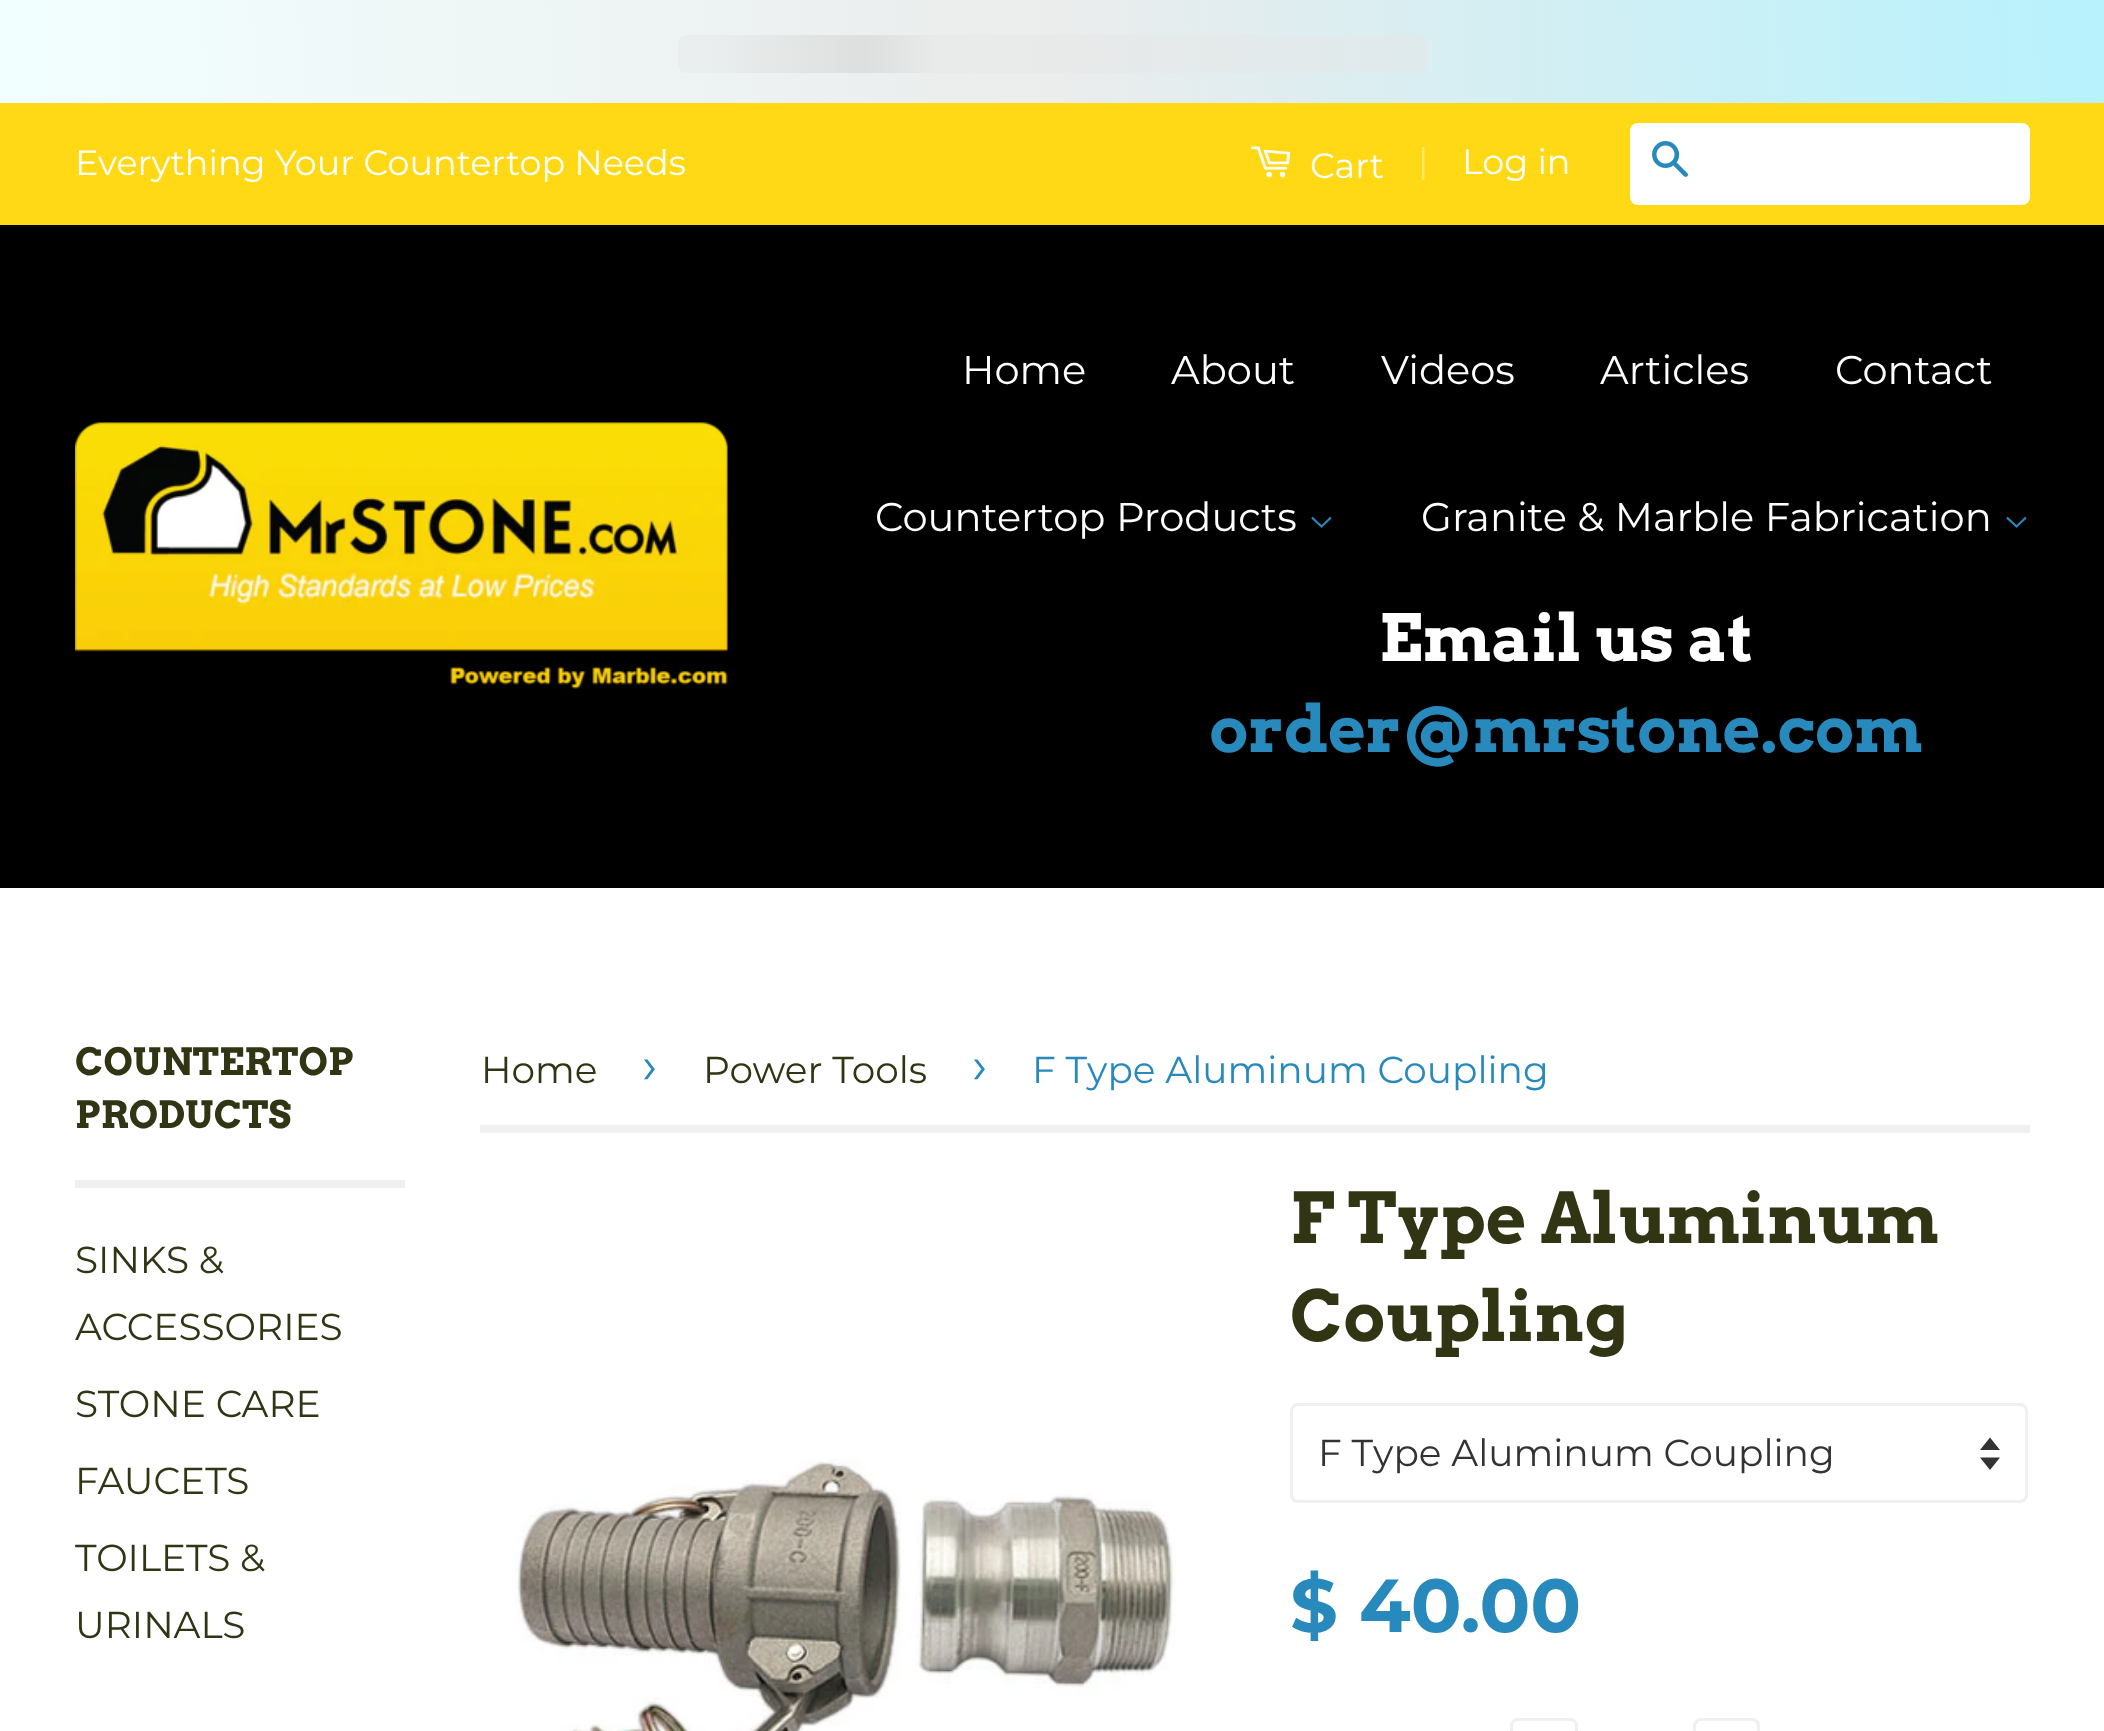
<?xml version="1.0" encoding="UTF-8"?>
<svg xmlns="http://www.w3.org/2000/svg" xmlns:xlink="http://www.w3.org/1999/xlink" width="2104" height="1731">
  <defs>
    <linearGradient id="g1" gradientUnits="userSpaceOnUse" x1="-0.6" y1="70" x2="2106" y2="33"><stop offset="0" stop-color="#f2ffff" /><stop offset="0.5" stop-color="#ebecec" /><stop offset="1" stop-color="#b7f2fd" /></linearGradient>
    <linearGradient id="g2" gradientUnits="userSpaceOnUse" x1="678" y1="53" x2="1428" y2="52"><stop offset="0.05" stop-color="#e6e6e6" stop-opacity="0.42" /><stop offset="0.25" stop-color="#cccccc" stop-opacity="0.47" /><stop offset="0.35" stop-color="#e6e6e6" stop-opacity="0.47" /></linearGradient>
  </defs>
  <rect width="100%" height="100%" fill="#ffffff" />
  <rect width="2104" height="103" fill="url(#g1)" />
  <rect x="678" y="35" width="750" height="38" rx="8" fill="url(#g2)" />
  <rect y="103" width="2104" height="122" fill="#ffd916" />
  <image x="1250" y="146" width="41" height="32" xlink:href="image1.png" />
  <rect x="1630" y="123" width="400" height="82" rx="8" fill="#ffffff" />
  <image x="1652" y="141" width="36" height="36" xlink:href="image2.png" />
  <rect y="225" width="2104" height="663" fill="#000000" />
  <image x="75" y="422" width="653" height="267" xlink:href="image3.png" />
  <image x="1311" y="516" width="21" height="12" xlink:href="image4.png" />
  <image x="2006" y="516" width="21" height="12" xlink:href="image4.png" />
  <rect x="75" y="1180" width="330" height="8" fill="#f0f0f0" />
  <rect x="480" y="1125" width="1550" height="8" fill="#f0f0f0" />
  <image x="515" y="1458" width="661" height="273" xlink:href="image5.png" />
  <path d="M 1980 1457.5 l 10 12.5 l 10 -12.5 z m 10 -20 l -10 12.5 h 20 z" fill="#333333" />
  <rect x="1291.5" y="1404.5" width="735" height="97" rx="6.5" fill="none" stroke="#f0f0f0" stroke-width="3" />
  <rect x="1511.5" y="1719.5" width="65" height="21" rx="6.5" fill="none" stroke="#f0f0f0" stroke-width="3" />
  <rect x="1694.5" y="1719.5" width="64" height="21" rx="6.5" fill="none" stroke="#f0f0f0" stroke-width="3" />
  <text x="75" y="175" style="font-family: Montserrat; font-size: 35px; fill: #ffffff">Everything Your Countertop Needs</text>
  <text x="1310" y="178" style="font-family: Montserrat; font-size: 35px; fill: #ffffff">Cart</text>
  <text x="1418" y="173" style="font-family: Montserrat; font-size: 35px; fill: #ffe873">|</text>
  <text x="1462" y="174" style="font-family: Montserrat; font-size: 35px; fill: #ffffff">Log in</text>
  <text x="962" y="384" style="font-family: Montserrat; font-size: 40px; fill: #ffffff">Home</text>
  <text x="1171" y="384" style="font-family: Montserrat; font-size: 40px; fill: #ffffff">About</text>
  <text x="1381" y="384" style="font-family: Montserrat; font-size: 40px; fill: #ffffff">Videos</text>
  <text x="1600" y="384" style="font-family: Montserrat; font-size: 40px; fill: #ffffff">Articles</text>
  <text x="1835" y="384" style="font-family: Montserrat; font-size: 40px; fill: #ffffff">Contact</text>
  <text x="875" y="531" style="font-family: Montserrat; font-size: 40px; fill: #ffffff">Countertop Products</text>
  <text x="1421" y="531" style="font-family: Montserrat; font-size: 40px; fill: #ffffff">Granite &amp; Marble Fabrication</text>
  <text x="1379" y="661" style="font-family: Arvo; font-size: 65px; font-weight: bold; fill: #ffffff">Email us at</text>
  <text x="1209" y="752" style="font-family: Arvo; font-size: 65px; font-weight: bold; fill: #2789bc">order@mrstone.com</text>
  <text x="75" y="1075" style="font-family: Arvo; font-size: 37.5px; font-weight: bold; fill: #313514">COUNTERTOP</text>
  <text x="75" y="1128" style="font-family: Arvo; font-size: 37.5px; font-weight: bold; fill: #313514">PRODUCTS</text>
  <text x="75" y="1273" style="font-family: Montserrat; font-size: 37.5px; fill: #313514">SINKS &amp;</text>
  <text x="75" y="1340" style="font-family: Montserrat; font-size: 37.5px; fill: #313514">ACCESSORIES</text>
  <text x="75" y="1417" style="font-family: Montserrat; font-size: 37.5px; fill: #313514">STONE CARE</text>
  <text x="75" y="1494" style="font-family: Montserrat; font-size: 37.5px; fill: #313514">FAUCETS</text>
  <text x="75" y="1571" style="font-family: Montserrat; font-size: 37.5px; fill: #313514">TOILETS &amp;</text>
  <text x="75" y="1638" style="font-family: Montserrat; font-size: 37.5px; fill: #313514">URINALS</text>
  <text x="481" y="1083" style="font-family: Montserrat; font-size: 37.5px; fill: #313514">Home</text>
  <text x="642" y="1083" style="font-family: Montserrat; font-size: 52px; fill: #2789bc">›</text>
  <text x="703" y="1083" style="font-family: Montserrat; font-size: 37.5px; fill: #313514">Power Tools</text>
  <text x="972" y="1083" style="font-family: Montserrat; font-size: 52px; fill: #2789bc">›</text>
  <text x="1032" y="1083" style="font-family: Montserrat; font-size: 37.5px; fill: #2789bc">F Type Aluminum Coupling</text>
  <text x="1290" y="1243" style="font-family: Arvo; font-size: 70px; font-weight: bold; fill: #313514">F Type Aluminum</text>
  <text x="1290" y="1341" style="font-family: Arvo; font-size: 70px; font-weight: bold; fill: #313514">Coupling</text>
  <text x="1318" y="1466" style="font-family: Montserrat; font-size: 37.5px; fill: #333333">F Type Aluminum Coupling</text>
  <text x="1290" y="1632" style="font-family: Montserrat; font-size: 75px; font-weight: bold; fill: #2789bc">$ 40.00</text>
</svg>
